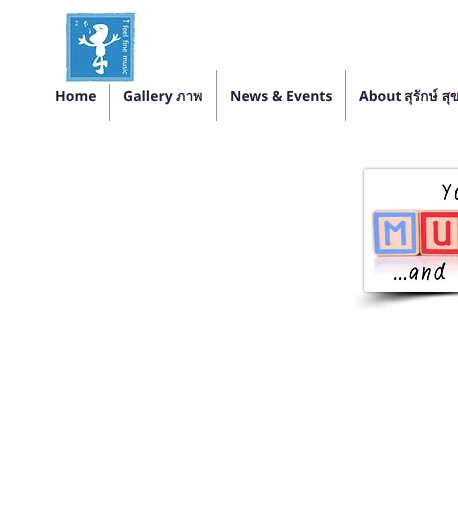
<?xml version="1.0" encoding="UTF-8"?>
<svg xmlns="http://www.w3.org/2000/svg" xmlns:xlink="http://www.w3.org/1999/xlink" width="458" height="532">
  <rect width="100%" height="100%" fill="#ffffff" />
  <image x="63" y="10" width="74" height="74" xlink:href="image1.png" />
  <rect x="109" y="84" width="1" height="37" fill="#949494" />
  <rect x="216" y="70" width="1" height="51" fill="#949494" />
  <rect x="345" y="70" width="1" height="51" fill="#949494" />
  <rect x="364" y="169" width="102" height="123" rx="3" fill="#000000" fill-opacity="0.5" filter="blur(1.5px)" />
  <rect x="365" y="170" width="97" height="121" rx="2" fill="#ffffff" stroke="#ffffff" stroke-width="2" />
  <image x="370" y="183" width="88" height="100" xlink:href="image2.png" />
  <image x="355" y="292" width="103" height="18" xlink:href="image3.png" />
  <text x="55" y="101" style="font-family: Open Sans; font-size: 14px; font-weight: bold; fill: #281a39">Home</text>
  <text x="123" y="101" style="font-family: Open Sans; font-size: 14px; font-weight: bold; fill: #281a39">Gallery</text>
  <text x="176" y="101" style="font-family: Loma; font-size: 14px; font-weight: bold; fill: #281a39">ภาพ</text>
  <text x="230" y="101" style="font-family: Open Sans; font-size: 14px; font-weight: bold; fill: #281a39">News &amp; Events</text>
  <text x="359" y="101" style="font-family: Open Sans; font-size: 14px; font-weight: bold; fill: #281a39">About</text>
  <text x="404" y="101" word-spacing="-1" style="font-family: Loma; font-size: 14px; font-weight: bold; fill: #281a39">สุรักษ์ สุข</text>
</svg>
